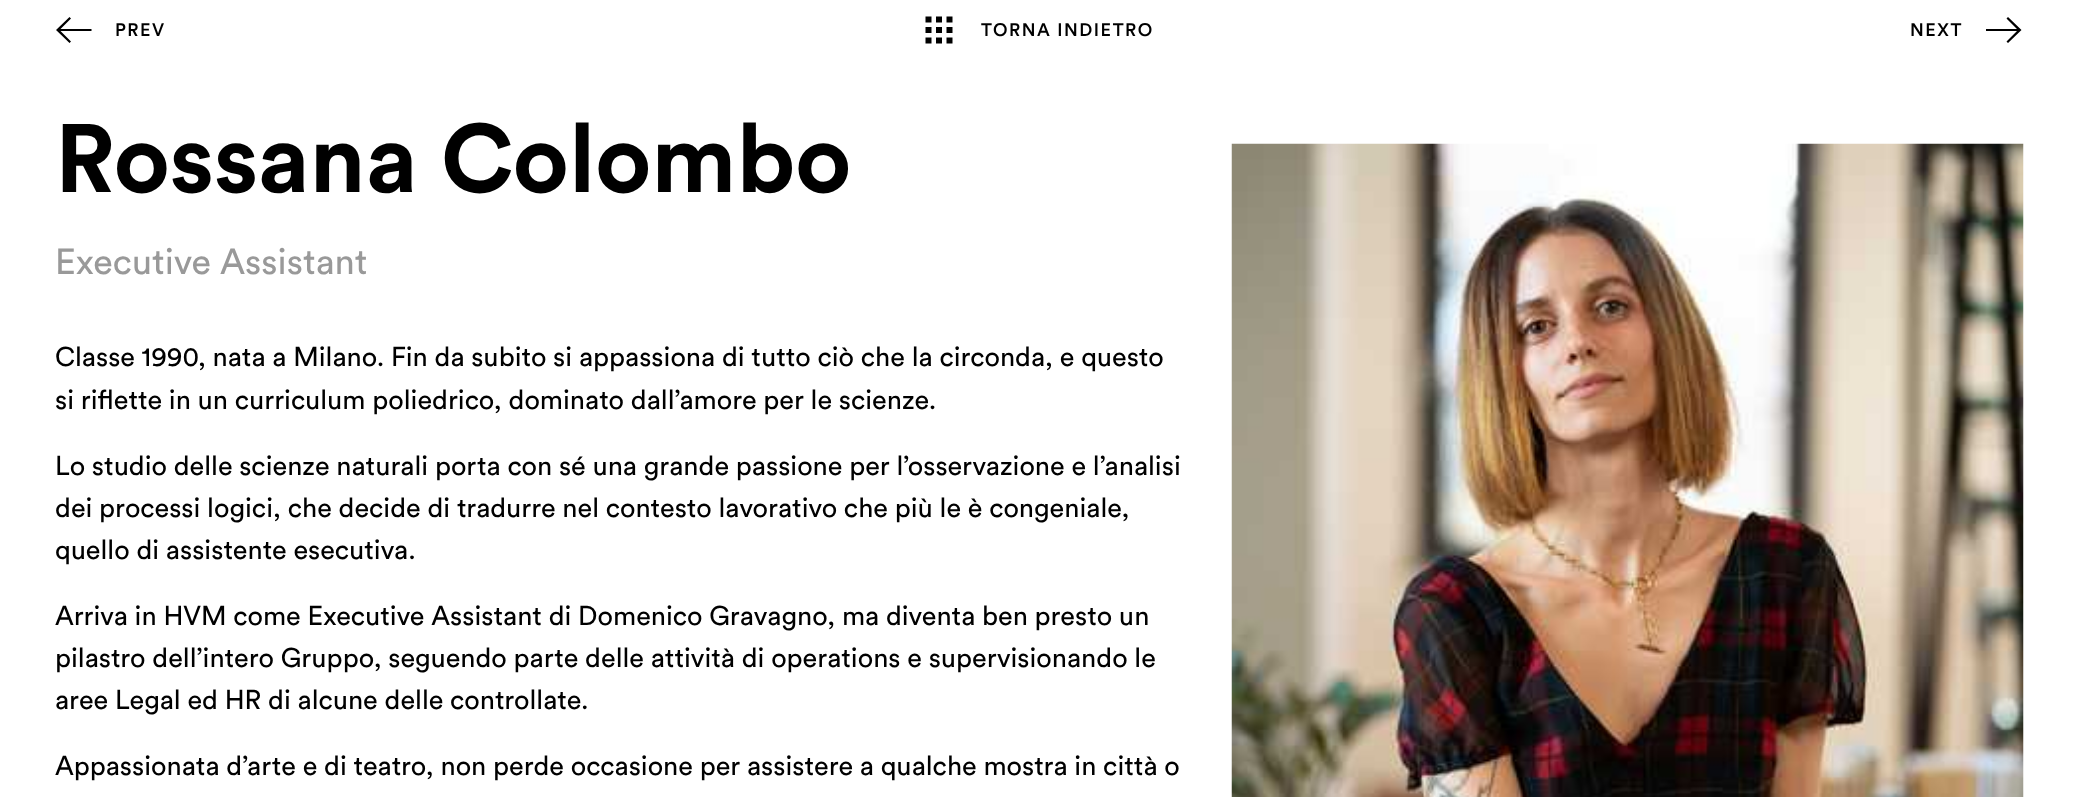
<?xml version="1.0" encoding="UTF-8"?>
<svg xmlns="http://www.w3.org/2000/svg" xmlns:xlink="http://www.w3.org/1999/xlink" width="2077" height="797">
  <rect width="100%" height="100%" fill="#ffffff" />
  <path d="M 60.5 29 h 31 v 2 h -31 l 10.5 10.5 l -1.5 1.5 l -13.5 -13 l 13.5 -13 l 1.5 1.5 z" fill="#000000" fill-rule="evenodd" />
  <image x="925" y="16" width="28" height="28" xlink:href="image1.png" />
  <path d="M 2017 29 h -31 v 2 h 31 l -10.5 10.5 l 1.5 1.5 l 13.5 -13 l -13.5 -13 l -1.5 1.5 z" fill="#000000" fill-rule="evenodd" />
  <image x="1231" y="143" width="793" height="654" xlink:href="image2.png" />
  <text x="115" y="36" style="font-family: Circular; font-size: 18px; font-weight: 500; letter-spacing: 1.5px; fill: #000000">PREV</text>
  <text x="981" y="36" style="font-family: Circular; font-size: 18px; font-weight: 500; letter-spacing: 1.5px; fill: #000000">TORNA INDIETRO</text>
  <text x="1910" y="36" style="font-family: Circular; font-size: 18px; font-weight: 500; letter-spacing: 1.5px; fill: #000000">NEXT</text>
  <text x="55" y="192" style="font-family: Circular; font-size: 96px; font-weight: bold; fill: #000000">Rossana Colombo</text>
  <text x="55" y="274" style="font-family: Circular; font-size: 36px; fill: #999999">Executive Assistant</text>
  <text x="55" y="366" style="font-family: Circular; font-size: 27px; fill: #000000">Classe 1990, nata a Milano. Fin da subito si appassiona di tutto ciò che la circonda, e questo</text>
  <text x="55" y="409" style="font-family: Circular; font-size: 27px; fill: #000000">si riflette in un curriculum poliedrico, dominato dall’amore per le scienze.</text>
  <text x="55" y="475" style="font-family: Circular; font-size: 27px; fill: #000000">Lo studio delle scienze naturali porta con sé una grande passione per l’osservazione e l’analisi</text>
  <text x="55" y="517" style="font-family: Circular; font-size: 27px; fill: #000000">dei processi logici, che decide di tradurre nel contesto lavorativo che più le è congeniale,</text>
  <text x="55" y="559" style="font-family: Circular; font-size: 27px; fill: #000000">quello di assistente esecutiva.</text>
  <text x="55" y="625" style="font-family: Circular; font-size: 27px; fill: #000000">Arriva in HVM come Executive Assistant di Domenico Gravagno, ma diventa ben presto un</text>
  <text x="55" y="667" style="font-family: Circular; font-size: 27px; fill: #000000">pilastro dell’intero Gruppo, seguendo parte delle attività di operations e supervisionando le</text>
  <text x="55" y="709" style="font-family: Circular; font-size: 27px; fill: #000000">aree Legal ed HR di alcune delle controllate.</text>
  <text x="55" y="775" style="font-family: Circular; font-size: 27px; fill: #000000">Appassionata d’arte e di teatro, non perde occasione per assistere a qualche mostra in città o</text>
</svg>
